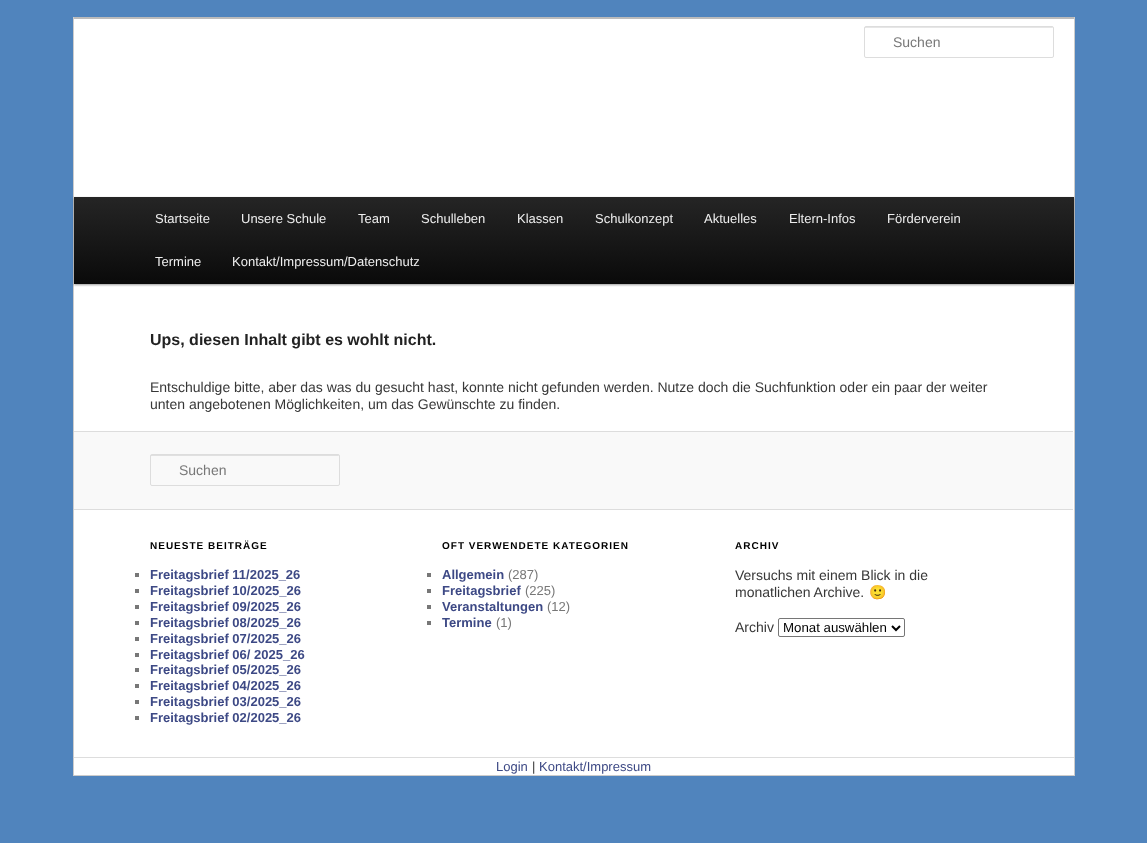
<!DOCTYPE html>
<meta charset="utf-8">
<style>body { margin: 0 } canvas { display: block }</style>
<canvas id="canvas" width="1147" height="843"></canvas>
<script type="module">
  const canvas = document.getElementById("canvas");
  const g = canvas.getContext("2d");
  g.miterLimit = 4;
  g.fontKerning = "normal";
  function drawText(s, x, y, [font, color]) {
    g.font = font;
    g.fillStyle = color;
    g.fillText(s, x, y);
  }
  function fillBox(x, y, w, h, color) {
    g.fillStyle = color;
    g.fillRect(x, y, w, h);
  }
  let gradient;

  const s1 = ["14px Liberation Sans", "#777777"];
  const s2 = ["13px Liberation Sans", "#EEEEEE"];
  const s3 = ["bold 16px Liberation Sans", "#222222"];
  const s4 = ["14px Liberation Sans", "#373737"];
  const s5 = ["bold 10px Liberation Sans", "#000000"];
  const s6 = ["bold 13px Liberation Sans", "#3D4985"];
  const s7 = ["13px Liberation Sans", "#777777"];
  const s8 = ["14px Noto Color Emoji", "#373737"];
  const s9 = ["13.25px Liberation Sans", "#000000"];
  const s10 = ["13px Liberation Sans", "#3D4985"];
  const s11 = ["13px Liberation Sans", "#373737"];

  fillBox(0, 0, 1147, 843, "#5084BD");
  fillBox(74, 19, 1000, 756, "#FFFFFF");
  fillBox(1074, 17, 1, 759, "#CCCCCC");
  fillBox(73, 775, 1002, 1, "#CCCCCC");
  fillBox(73, 17, 1, 759, "#CCCCCC");
  fillBox(74, 17, 1000, 2, "#BBBBBB");
  g.fillStyle = "#E6E6E6";
  g.beginPath();
  g.moveTo(866, 28);
  g.lineTo(1053, 28);
  g.lineTo(1053, 29);
  g.bezierCurveTo(1053, 28, 1053, 27, 1052, 27);
  g.lineTo(865, 27);
  g.lineTo(865, 29);
  g.bezierCurveTo(865, 28, 865, 28, 866, 28);
  g.closePath();
  g.fill();
  g.beginPath();
  g.roundRect(864.5, 26.5, 189, 31, 1.5);
  g.strokeStyle = "#DDDDDD";
  g.stroke();
  drawText("Suchen", 893, 47, s1);
  g.fillStyle = "rgba(0, 0, 0, 0.4)";
  g.filter = "blur(1px)";
  g.beginPath();
  g.rect(74, 198, 1000, 87);
  g.fill();
  g.filter = "none";
  gradient = g.createLinearGradient(574, 197, 574, 284);
  gradient.addColorStop(0, "#252525");
  gradient.addColorStop(1, "#0A0A0A");
  g.fillStyle = gradient;
  g.fillRect(74, 197, 1000, 87);
  drawText("Startseite", 155, 223, s2);
  drawText("Unsere Schule", 241, 223, s2);
  drawText("Team", 358, 223, s2);
  drawText("Schulleben", 421, 223, s2);
  drawText("Klassen", 517, 223, s2);
  drawText("Schulkonzept", 595, 223, s2);
  drawText("Aktuelles", 704, 223, s2);
  drawText("Eltern-Infos", 789, 223, s2);
  drawText("Förderverein", 887, 223, s2);
  drawText("Termine", 155, 266, s2);
  drawText("Kontakt/Impressum/Datenschutz", 232, 266, s2);
  drawText("Ups, diesen Inhalt gibt es wohlt nicht.", 150, 345, s3);
  drawText("Entschuldige bitte, aber das was du gesucht hast, konnte nicht gefunden werden. Nutze doch die Suchfunktion oder ein paar der weiter", 150, 392, s4);
  drawText("unten angebotenen Möglichkeiten, um das Gewünschte zu finden.", 150, 409, s4);
  fillBox(74, 432, 999, 77, "#F9F9F9");
  fillBox(74, 431, 999, 1, "#DDDDDD");
  fillBox(74, 509, 999, 1, "#DDDDDD");
  g.fillStyle = "#E0E0E0";
  g.beginPath();
  g.moveTo(152, 456);
  g.lineTo(339, 456);
  g.lineTo(339, 457);
  g.bezierCurveTo(339, 456, 339, 455, 338, 455);
  g.lineTo(151, 455);
  g.lineTo(151, 457);
  g.bezierCurveTo(151, 456, 151, 456, 152, 456);
  g.closePath();
  g.fill();
  g.beginPath();
  g.roundRect(150.5, 454.5, 189, 31, 1.5);
  g.stroke();
  drawText("Suchen", 179, 475, s1);
  g.letterSpacing = "1px";
  drawText("NEUESTE BEITRÄGE", 150, 549, s5);
  fillBox(135, 573, 4, 4, "#777777");
  g.letterSpacing = "0px";
  drawText("Freitagsbrief 11/2025_26", 150, 579, s6);
  fillBox(135, 589, 4, 4, "#777777");
  drawText("Freitagsbrief 10/2025_26", 150, 595, s6);
  fillBox(135, 605, 4, 4, "#777777");
  drawText("Freitagsbrief 09/2025_26", 150, 611, s6);
  fillBox(135, 621, 4, 4, "#777777");
  drawText("Freitagsbrief 08/2025_26", 150, 627, s6);
  fillBox(135, 637, 4, 4, "#777777");
  drawText("Freitagsbrief 07/2025_26", 150, 643, s6);
  fillBox(135, 653, 4, 4, "#777777");
  drawText("Freitagsbrief 06/ 2025_26", 150, 659, s6);
  fillBox(135, 668, 4, 4, "#777777");
  drawText("Freitagsbrief 05/2025_26", 150, 674, s6);
  fillBox(135, 684, 4, 4, "#777777");
  drawText("Freitagsbrief 04/2025_26", 150, 690, s6);
  fillBox(135, 700, 4, 4, "#777777");
  drawText("Freitagsbrief 03/2025_26", 150, 706, s6);
  fillBox(135, 716, 4, 4, "#777777");
  drawText("Freitagsbrief 02/2025_26", 150, 722, s6);
  g.letterSpacing = "1px";
  drawText("OFT VERWENDETE KATEGORIEN", 442, 549, s5);
  fillBox(427, 573, 4, 4, "#777777");
  g.letterSpacing = "0px";
  drawText("Allgemein", 442, 579, s6);
  drawText("(287)", 508, 579, s7);
  fillBox(427, 589, 4, 4, "#777777");
  drawText("Freitagsbrief", 442, 595, s6);
  drawText("(225)", 525, 595, s7);
  fillBox(427, 605, 4, 4, "#777777");
  drawText("Veranstaltungen", 442, 611, s6);
  drawText("(12)", 547, 611, s7);
  fillBox(427, 621, 4, 4, "#777777");
  drawText("Termine", 442, 627, s6);
  drawText("(1)", 496, 627, s7);
  g.letterSpacing = "1px";
  drawText("ARCHIV", 735, 549, s5);
  g.letterSpacing = "0px";
  drawText("Versuchs mit einem Blick in die", 735, 580, s4);
  drawText("monatlichen Archive.", 735, 597, s4);
  drawText("🙂", 869, 597, s8);
  drawText("Archiv", 735, 632, s4);
  g.beginPath();
  g.roundRect(778.5, 618.5, 126, 18, 1.5);
  g.strokeStyle = "#767676";
  g.stroke();
  g.beginPath();
  g.moveTo(892, 626);
  g.lineTo(896, 630);
  g.lineTo(900, 626);
  g.strokeStyle = "#000000";
  g.lineWidth = 2;
  g.stroke();
  drawText("Monat auswählen", 783, 632, s9);
  fillBox(74, 757, 1000, 1, "#DDDDDD");
  drawText("Login", 496, 771, s10);
  drawText("|", 532, 771, s11);
  drawText("Kontakt/Impressum", 539, 771, s10);
</script>
